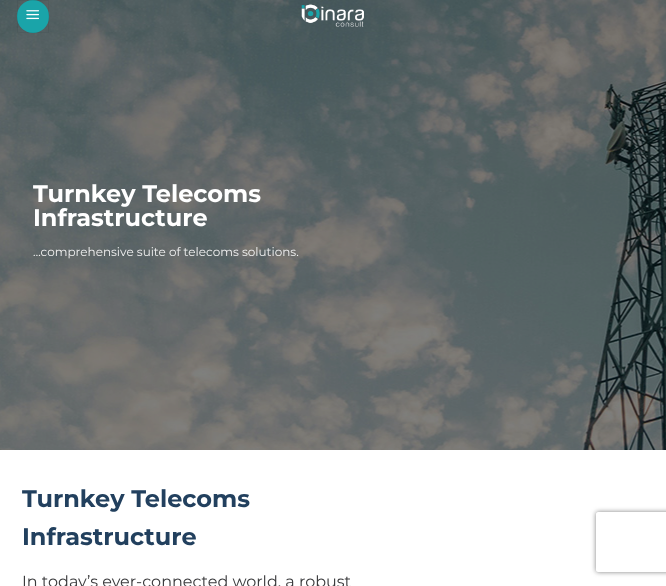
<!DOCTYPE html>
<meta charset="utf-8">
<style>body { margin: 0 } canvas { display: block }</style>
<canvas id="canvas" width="666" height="586"></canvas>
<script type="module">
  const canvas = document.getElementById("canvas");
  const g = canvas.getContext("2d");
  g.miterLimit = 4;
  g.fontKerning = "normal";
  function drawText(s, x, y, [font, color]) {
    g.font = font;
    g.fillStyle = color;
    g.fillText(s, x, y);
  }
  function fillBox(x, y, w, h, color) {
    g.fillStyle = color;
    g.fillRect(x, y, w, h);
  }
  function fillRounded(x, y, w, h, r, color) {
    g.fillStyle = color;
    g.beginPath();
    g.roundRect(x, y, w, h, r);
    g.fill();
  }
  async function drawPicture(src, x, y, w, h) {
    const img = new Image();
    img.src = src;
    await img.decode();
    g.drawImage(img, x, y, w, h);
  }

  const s1 = ["bold 24px Montserrat", "#FFFFFF"];
  const s2 = ["12px Montserrat", "#F1F1F1"];
  const s3 = ["bold 24px Montserrat", "#22405E"];
  const s4 = ["16px Montserrat", "#3A3A3C"];

  fillBox(0, 0, 666, 586, "#FFFFFF");
  await drawPicture("pic3.png", 0, 0, 666, 450);
  fillRounded(17, 0, 32, 33, 16, "#1AA4A9");
  g.strokeStyle = "rgba(0, 0, 0, 0.05)";
  g.strokeRect(17.5, 0.5, 31, 32);
  await drawPicture("pic1.png", 26, 10, 13, 10);
  await drawPicture("pic2.png", 301, 4, 63, 23);
  drawText("Turnkey Telecoms", 33, 202, s1);
  drawText("Infrastructure", 33, 226, s1);
  drawText("…comprehensive suite of telecoms solutions.", 33, 256, s2);
  drawText("Turnkey Telecoms", 22, 507, s3);
  drawText("Infrastructure", 22, 545, s3);
  drawText("In today’s ever-connected world, a robust", 22, 587, s4);
  g.save();
  g.beginPath();
  g.moveTo(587, 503);
  g.lineTo(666, 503);
  g.lineTo(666, 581);
  g.lineTo(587, 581);
  g.closePath();
  g.moveTo(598, 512);
  g.lineTo(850, 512);
  g.bezierCurveTo(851, 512, 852, 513, 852, 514);
  g.lineTo(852, 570);
  g.bezierCurveTo(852, 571, 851, 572, 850, 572);
  g.lineTo(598, 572);
  g.bezierCurveTo(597, 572, 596, 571, 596, 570);
  g.lineTo(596, 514);
  g.bezierCurveTo(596, 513, 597, 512, 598, 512);
  g.closePath();
  g.clip("evenodd");
  g.fillStyle = "#808080";
  g.filter = "blur(2.5px)";
  g.beginPath();
  g.roundRect(596, 512, 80, 60, 2);
  g.fill();
  g.filter = "none";
  g.restore();
</script>
